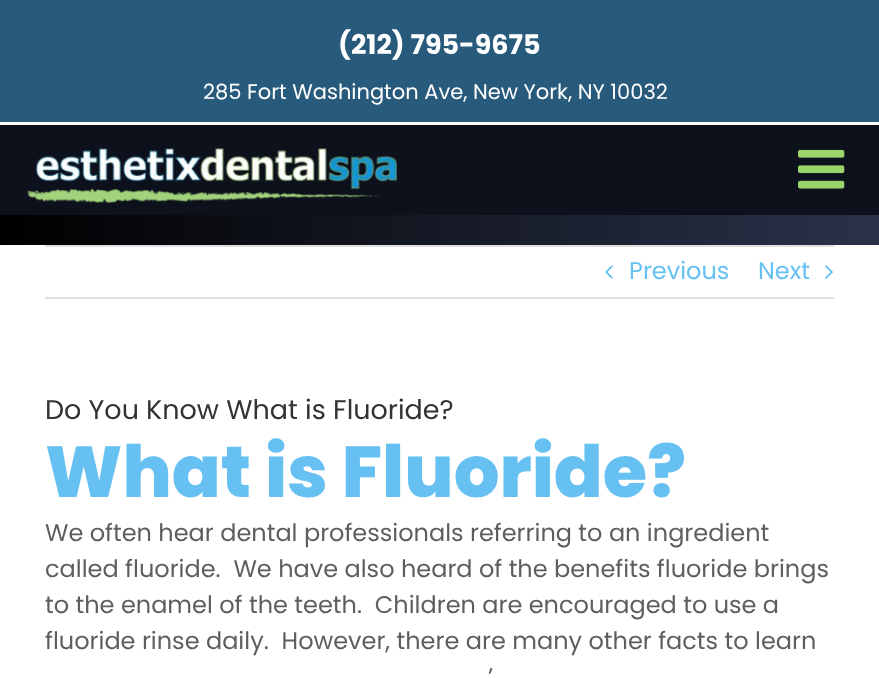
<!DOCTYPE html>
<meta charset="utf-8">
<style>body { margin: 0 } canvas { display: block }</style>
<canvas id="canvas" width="879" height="678"></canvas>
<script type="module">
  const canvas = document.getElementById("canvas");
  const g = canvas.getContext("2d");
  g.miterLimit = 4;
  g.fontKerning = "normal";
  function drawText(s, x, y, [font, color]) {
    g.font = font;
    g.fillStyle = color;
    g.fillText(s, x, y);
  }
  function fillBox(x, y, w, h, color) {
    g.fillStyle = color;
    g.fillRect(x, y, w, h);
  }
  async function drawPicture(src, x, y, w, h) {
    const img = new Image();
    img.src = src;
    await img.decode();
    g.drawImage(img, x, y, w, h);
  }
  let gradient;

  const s1 = ["bold 27px Poppins", "#FFFFFF"];
  const s2 = ["21px Poppins", "#FFFFFF"];
  const s3 = ["24px Poppins", "#66C0F2"];
  const s4 = ["27px Poppins", "#333333"];
  const s5 = ["800 72px Poppins", "#66C0F2"];
  const s6 = ["24px Poppins", "#5E5E5E"];

  fillBox(0, 0, 879, 678, "#FFFFFF");
  gradient = g.createLinearGradient(0, 122, 879, 122);
  gradient.addColorStop(0, "#000000");
  gradient.addColorStop(1, "#2A324A");
  g.fillStyle = gradient;
  g.fillRect(0, 215, 879, 30);
  fillBox(0, 0, 879, 122, "#285A7B");
  drawText("(212) 795-9675", 338, 54, s1);
  drawText("285 Fort Washington Ave, New York, NY 10032", 203, 99, s2);
  fillBox(0, 125, 879, 90, "#0D111C");
  await drawPicture("pic1.png", 27, 148, 370, 55);
  await drawPicture("pic2.png", 798, 149, 47, 40);
  fillBox(45, 245, 789, 2, "#E0DEDE");
  fillBox(45, 297, 789, 2, "#E0DEDE");
  await drawPicture("pic3.png", 605, 265, 8, 14);
  drawText("Previous", 629, 279, s3);
  drawText("Next", 758, 279, s3);
  await drawPicture("pic4.png", 825, 265, 8, 14);
  drawText("Do You Know What is Fluoride?", 45, 419, s4);
  drawText("What is Fluoride?", 45, 497, s5);
  drawText("We often hear dental professionals referring to an ingredient", 45, 541, s6);
  drawText("called fluoride.  We have also heard of the benefits fluoride brings", 45, 577, s6);
  drawText("to the enamel of the teeth.  Children are encouraged to use a", 45, 613, s6);
  drawText("fluoride rinse daily.  However, there are many other facts to learn", 45, 649, s6);
  drawText("’", 488, 685, s6);
</script>
